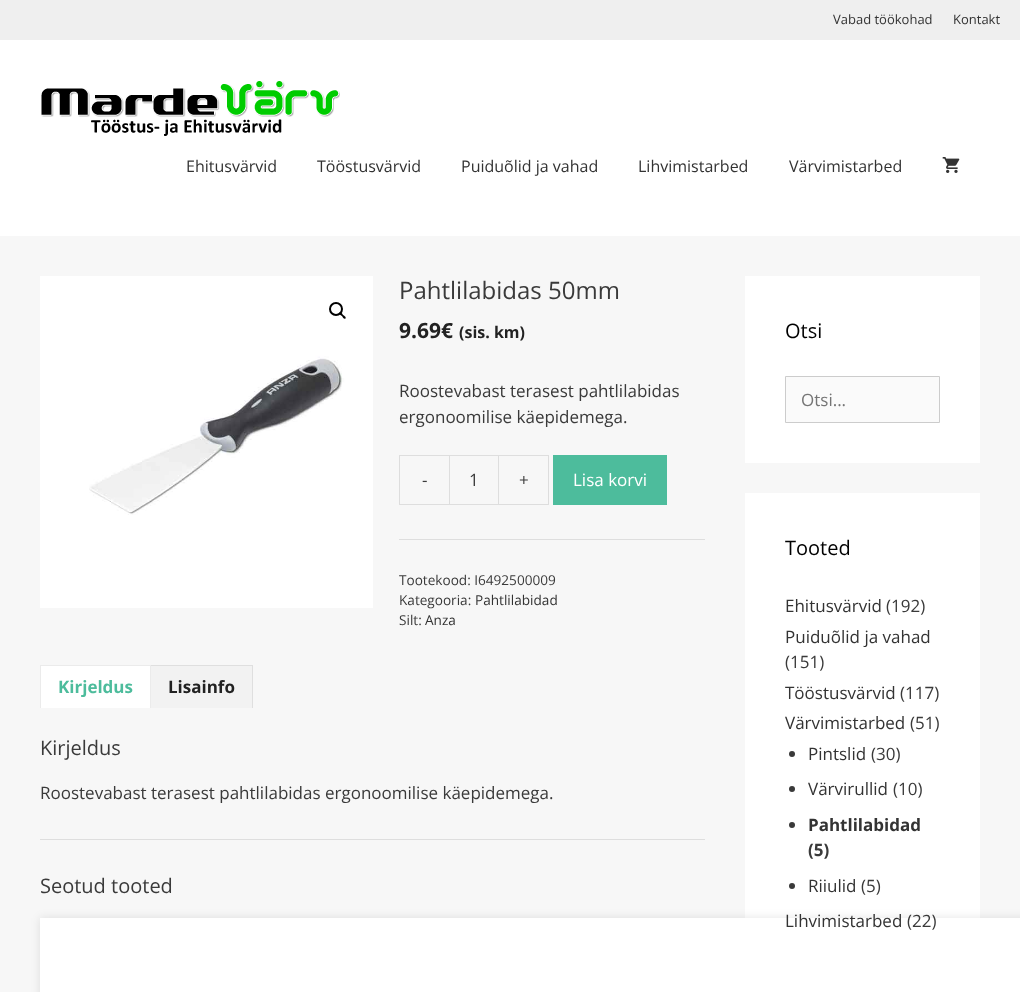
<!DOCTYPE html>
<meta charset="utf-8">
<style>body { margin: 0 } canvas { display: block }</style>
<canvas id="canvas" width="1020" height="992"></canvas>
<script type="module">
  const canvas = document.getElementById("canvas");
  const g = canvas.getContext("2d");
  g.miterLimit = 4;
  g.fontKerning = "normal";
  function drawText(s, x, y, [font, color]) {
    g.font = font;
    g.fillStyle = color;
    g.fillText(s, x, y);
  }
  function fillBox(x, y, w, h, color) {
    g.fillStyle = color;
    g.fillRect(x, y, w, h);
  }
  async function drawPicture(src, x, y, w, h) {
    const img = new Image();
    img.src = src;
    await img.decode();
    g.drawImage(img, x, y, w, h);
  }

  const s1 = ["13px Open Sans", "#333333"];
  const s2 = ["16px Open Sans", "#333333"];
  const s3 = ["24px Open Sans", "#3A3A3A"];
  const s4 = ["bold 21px Open Sans", "#222222"];
  const s5 = ["bold 16px Open Sans", "#222222"];
  const s6 = ["17px Open Sans", "#3A3A3A"];
  const s7 = ["17px Open Sans", "#FFFFFF"];
  const s8 = ["13.6px Open Sans", "#3A3A3A"];
  const s9 = ["13.6px Open Sans", "#333333"];
  const s10 = ["bold 17px Open Sans", "#4DBC9C"];
  const s11 = ["bold 17px Open Sans", "#222222"];
  const s12 = ["20px Open Sans", "#3A3A3A"];
  const s13 = ["20px Open Sans", "#000000"];
  const s14 = ["17px Open Sans", "#757575"];
  const s15 = ["17px Open Sans", "#333333"];
  const s16 = ["bold 17px Open Sans", "#333333"];
  const s17 = ["bold 17px Open Sans", "#3A3A3A"];

  fillBox(0, 0, 1020, 992, "#EFEFEF");
  drawText("Vabad töökohad", 833, 24, s1);
  drawText("Kontakt", 953, 24, s1);
  fillBox(0, 40, 1020, 196, "#FFFFFF");
  await drawPicture("pic1.png", 41, 81, 299, 55);
  drawText("Ehitusvärvid", 186, 172, s2);
  drawText("Tööstusvärvid", 317, 172, s2);
  drawText("Puiduõlid ja vahad", 461, 172, s2);
  drawText("Lihvimistarbed", 638, 172, s2);
  drawText("Värvimistarbed", 789, 172, s2);
  await drawPicture("pic2.png", 942, 157, 18, 16);
  fillBox(0, 236, 1020, 756, "#F7F7F7");
  await drawPicture("pic3.png", 40, 276, 333, 332);
  g.beginPath();
  g.arc(336, 309, 6, 0, Math.PI * 2);
  g.strokeStyle = "#000000";
  g.lineWidth = 2;
  g.stroke();
  g.fillStyle = "#000000";
  g.beginPath();
  g.moveTo(339.5, 312.5);
  g.bezierCurveTo(341, 311.5, 342.5, 314, 343, 315);
  g.bezierCurveTo(344, 315.5, 346.5, 317, 345.5, 318.5);
  g.bezierCurveTo(344, 319.5, 342.5, 317, 342, 316);
  g.bezierCurveTo(341, 315.5, 338.5, 314, 339.5, 312.5);
  g.closePath();
  g.fill();
  drawText("Pahtlilabidas 50mm", 399, 299, s3);
  drawText("9.69€", 399, 338, s4);
  drawText("(sis. km)", 459, 338, s5);
  drawText("Roostevabast terasest pahtlilabidas", 399, 397, s6);
  drawText("ergonoomilise käepidemega.", 399, 423, s6);
  g.fillStyle = "#DEDEDE";
  g.beginPath();
  g.moveTo(399, 455);
  g.lineTo(449, 455);
  g.lineTo(449, 456);
  g.lineTo(400, 456);
  g.closePath();
  g.moveTo(449, 505);
  g.lineTo(399, 505);
  g.lineTo(400, 504);
  g.lineTo(449, 504);
  g.closePath();
  g.fill();
  g.fillStyle = "rgba(0, 0, 0, 0.1)";
  g.beginPath();
  g.moveTo(399, 505);
  g.lineTo(399, 455);
  g.lineTo(400, 456);
  g.lineTo(400, 504);
  g.closePath();
  g.fill();
  drawText("-", 422, 486, s6);
  g.strokeStyle = "#DEDEDE";
  g.lineWidth = 1;
  g.strokeRect(449.5, 455.5, 49, 49);
  drawText("1", 469, 486, s6);
  g.fillStyle = "#DEDEDE";
  g.beginPath();
  g.moveTo(499, 455);
  g.lineTo(549, 455);
  g.lineTo(548, 456);
  g.lineTo(499, 456);
  g.closePath();
  g.fill();
  g.fillStyle = "rgba(0, 0, 0, 0.1)";
  g.beginPath();
  g.moveTo(549, 455);
  g.lineTo(549, 505);
  g.lineTo(548, 504);
  g.lineTo(548, 456);
  g.closePath();
  g.fill();
  g.beginPath();
  g.moveTo(549, 505);
  g.lineTo(499, 505);
  g.lineTo(499, 504);
  g.lineTo(548, 504);
  g.closePath();
  g.fill();
  drawText("+", 519, 486, s6);
  fillBox(553, 455, 114, 50, "#4DBC9C");
  drawText("Lisa korvi", 573, 486, s7);
  fillBox(399, 539, 306, 1, "#DEDEDE");
  drawText("Tootekood: I6492500009", 399, 585, s8);
  drawText("Kategooria:", 399, 605, s8);
  drawText("Pahtlilabidad", 475, 605, s9);
  drawText("Silt:", 399, 625, s8);
  drawText("Anza", 425, 625, s9);
  fillBox(40, 665, 111, 43, "#FFFFFF");
  g.fillStyle = "#EBEBEB";
  g.beginPath();
  g.moveTo(40, 665);
  g.lineTo(151, 665);
  g.lineTo(150, 666);
  g.lineTo(41, 666);
  g.closePath();
  g.fill();
  g.fillStyle = "rgba(0, 0, 0, 0.08)";
  g.beginPath();
  g.moveTo(151, 665);
  g.lineTo(151, 708);
  g.lineTo(150, 708);
  g.lineTo(150, 666);
  g.closePath();
  g.fill();
  g.beginPath();
  g.moveTo(40, 708);
  g.lineTo(40, 665);
  g.lineTo(41, 666);
  g.lineTo(41, 708);
  g.closePath();
  g.fill();
  drawText("Kirjeldus", 58, 693, s10);
  fillBox(151, 665, 102, 43, "#F2F2F2");
  g.fillStyle = "#DFDFDF";
  g.beginPath();
  g.moveTo(151, 665);
  g.lineTo(253, 665);
  g.lineTo(252, 666);
  g.lineTo(151, 666);
  g.closePath();
  g.fill();
  g.fillStyle = "rgba(0, 0, 0, 0.08)";
  g.beginPath();
  g.moveTo(253, 665);
  g.lineTo(253, 708);
  g.lineTo(252, 708);
  g.lineTo(252, 666);
  g.closePath();
  g.fill();
  drawText("Lisainfo", 168, 693, s11);
  fillBox(40, 839, 665, 1, "#DEDEDE");
  drawText("Kirjeldus", 40, 755, s12);
  drawText("Roostevabast terasest pahtlilabidas ergonoomilise käepidemega.", 40, 799, s6);
  drawText("Seotud tooted", 40, 893, s12);
  fillBox(745, 493, 235, 425, "#FFFFFF");
  g.fillStyle = "rgba(0, 0, 0, 0.1)";
  g.filter = "blur(5px)";
  g.beginPath();
  g.rect(40, 918, 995, 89);
  g.fill();
  g.filter = "none";
  fillBox(40, 918, 980, 74, "#FFFFFF");
  fillBox(745, 276, 235, 187, "#FFFFFF");
  drawText("Otsi", 785, 338, s13);
  g.fillStyle = "#FAFAFA";
  g.beginPath();
  g.rect(785.5, 376.5, 154, 46);
  g.fill();
  g.strokeStyle = "#CCCCCC";
  g.stroke();
  drawText("Otsi...", 801, 406, s14);
  drawText("Tooted", 785, 555, s13);
  drawText("Ehitusvärvid", 785, 612, s15);
  drawText("(192)", 886, 612, s6);
  drawText("Puiduõlid ja vahad", 785, 643, s15);
  drawText("(151)", 785, 668, s6);
  drawText("Tööstusvärvid", 785, 699, s15);
  drawText("(117)", 900, 699, s6);
  drawText("Värvimistarbed", 785, 729, s15);
  drawText("(51)", 910, 729, s6);
  g.beginPath();
  g.arc(792, 754, 3, 0, Math.PI * 2);
  g.fill();
  drawText("Pintslid", 808, 760, s15);
  drawText("(30)", 871, 760, s6);
  g.beginPath();
  g.arc(792, 789, 3, 0, Math.PI * 2);
  g.fill();
  drawText("Värvirullid", 808, 795, s15);
  drawText("(10)", 893, 795, s6);
  g.beginPath();
  g.arc(792, 825, 3, 0, Math.PI * 2);
  g.fill();
  drawText("Pahtlilabidad", 808, 831, s16);
  drawText("(5)", 808, 856, s17);
  g.beginPath();
  g.arc(792, 886, 3, 0, Math.PI * 2);
  g.fill();
  drawText("Riiulid", 808, 892, s15);
  drawText("(5)", 861, 892, s6);
  drawText("Lihvimistarbed", 785, 927, s15);
  drawText("(22)", 907, 927, s6);
</script>
